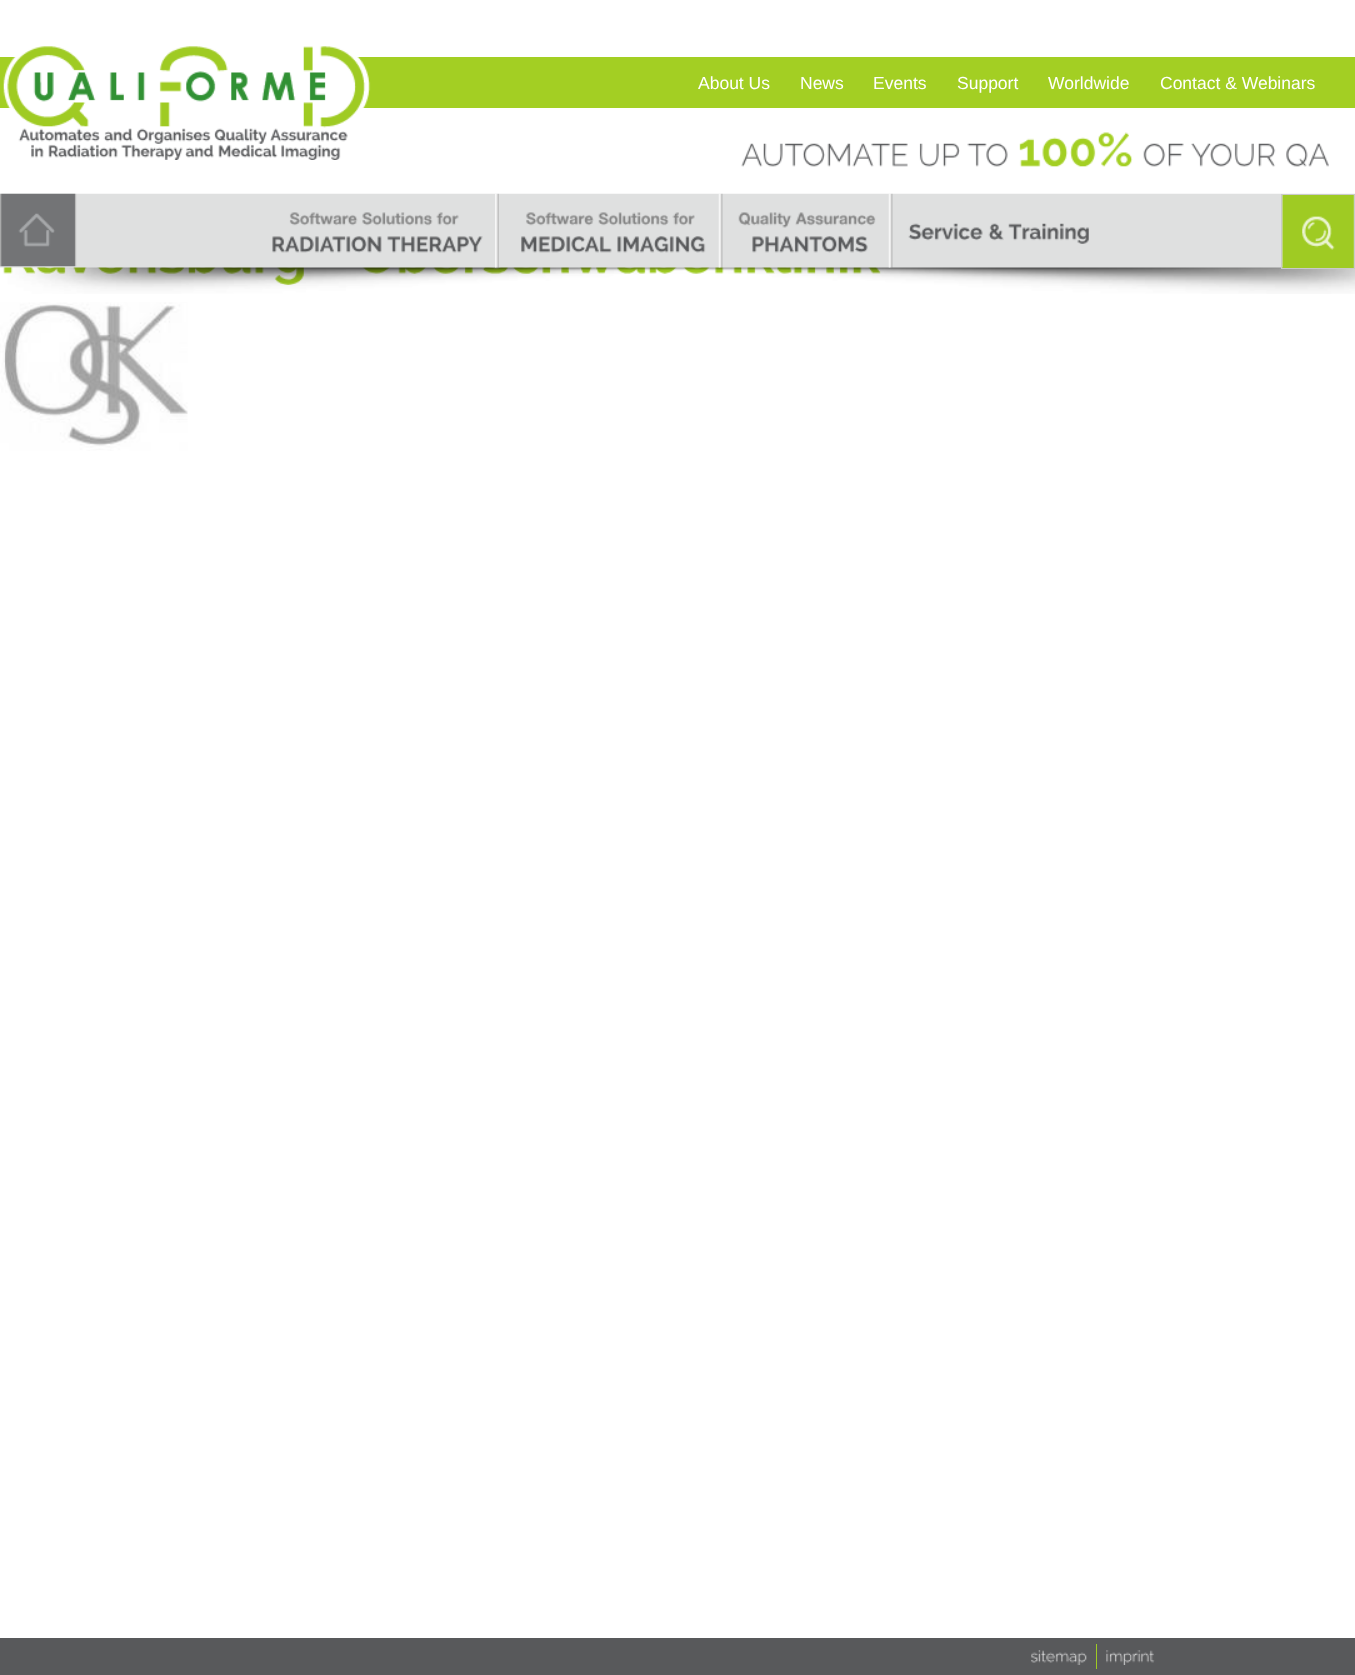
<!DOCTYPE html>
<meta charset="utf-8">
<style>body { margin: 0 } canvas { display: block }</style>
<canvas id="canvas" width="1355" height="1675"></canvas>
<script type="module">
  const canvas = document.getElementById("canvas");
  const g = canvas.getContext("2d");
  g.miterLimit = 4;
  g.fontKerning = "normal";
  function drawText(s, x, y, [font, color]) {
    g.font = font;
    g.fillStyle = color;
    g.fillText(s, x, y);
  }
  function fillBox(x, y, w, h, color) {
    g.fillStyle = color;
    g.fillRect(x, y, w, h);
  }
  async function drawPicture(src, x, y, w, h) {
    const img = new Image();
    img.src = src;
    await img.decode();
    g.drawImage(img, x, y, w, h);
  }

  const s1 = ["17.5px Liberation Sans", "#FFFFFF"];

  fillBox(0, 0, 1355, 1675, "#FFFFFF");
  fillBox(0, 57, 1355, 51, "#A3CF23");
  await drawPicture("pic1.png", 3, 46, 368, 82);
  drawText("About Us", 698, 89, s1);
  drawText("News", 800, 89, s1);
  drawText("Events", 873, 89, s1);
  drawText("Support", 957, 89, s1);
  drawText("Worldwide", 1048, 89, s1);
  drawText("Contact & Webinars", 1160, 89, s1);
  await drawPicture("pic2.png", 18, 128, 82, 14);
  await drawPicture("pic3.png", 103, 128, 30, 14);
  await drawPicture("pic4.png", 136, 128, 75, 16);
  await drawPicture("pic5.png", 214, 128, 53, 16);
  await drawPicture("pic6.png", 270, 128, 78, 14);
  await drawPicture("pic7.png", 31, 144, 13, 14);
  await drawPicture("pic8.png", 48, 144, 70, 14);
  await drawPicture("pic9.png", 121, 144, 62, 16);
  await drawPicture("pic10.png", 185, 144, 29, 14);
  await drawPicture("pic11.png", 218, 144, 60, 14);
  await drawPicture("pic12.png", 281, 144, 60, 16);
  await drawPicture("pic13.png", 741, 143, 167, 24);
  await drawPicture("pic14.png", 919, 143, 41, 24);
  await drawPicture("pic15.png", 967, 143, 41, 24);
  await drawPicture("pic16.png", 1019, 132, 114, 35);
  await drawPicture("pic17.png", 1143, 143, 41, 24);
  await drawPicture("pic18.png", 1191, 143, 85, 24);
  await drawPicture("pic19.png", 1286, 143, 43, 24);
  await drawPicture("pic42.png", 3, 267, 301, 18);
  await drawPicture("pic43.png", 362, 267, 519, 7);
  await drawPicture("pic20.png", 0, 193, 1355, 101);
  await drawPicture("pic21.png", 495, 193, 4, 75);
  await drawPicture("pic22.png", 289, 212, 69, 14);
  await drawPicture("pic23.png", 362, 212, 71, 14);
  await drawPicture("pic24.png", 436, 212, 23, 14);
  await drawPicture("pic25.png", 272, 236, 110, 17);
  await drawPicture("pic26.png", 387, 236, 96, 17);
  await drawPicture("pic27.png", 718, 193, 5, 75);
  await drawPicture("pic28.png", 526, 212, 68, 14);
  await drawPicture("pic29.png", 598, 212, 71, 14);
  await drawPicture("pic30.png", 672, 212, 23, 14);
  await drawPicture("pic31.png", 521, 236, 91, 17);
  await drawPicture("pic32.png", 617, 236, 89, 17);
  await drawPicture("pic33.png", 888, 193, 5, 75);
  await drawPicture("pic34.png", 738, 212, 54, 16);
  await drawPicture("pic35.png", 795, 212, 81, 14);
  await drawPicture("pic36.png", 752, 236, 116, 17);
  await drawPicture("pic37.png", 908, 223, 75, 18);
  await drawPicture("pic38.png", 988, 223, 16, 18);
  await drawPicture("pic39.png", 1008, 223, 81, 21);
  await drawPicture("pic40.png", 1282, 195, 72, 73);
  g.strokeStyle = "#CACACA";
  g.strokeRect(1281.5, 194.5, 73, 74);
  await drawPicture("pic41.png", 0, 193, 77, 74);
  await drawPicture("pic44.png", 0, 302, 188, 149);
  fillBox(0, 1638, 1355, 37, "#58595B");
  fillBox(1096, 1644, 1, 25, "#9FCB23");
  await drawPicture("pic45.png", 1031, 1650, 56, 15);
  await drawPicture("pic46.png", 1106, 1650, 49, 15);
</script>
